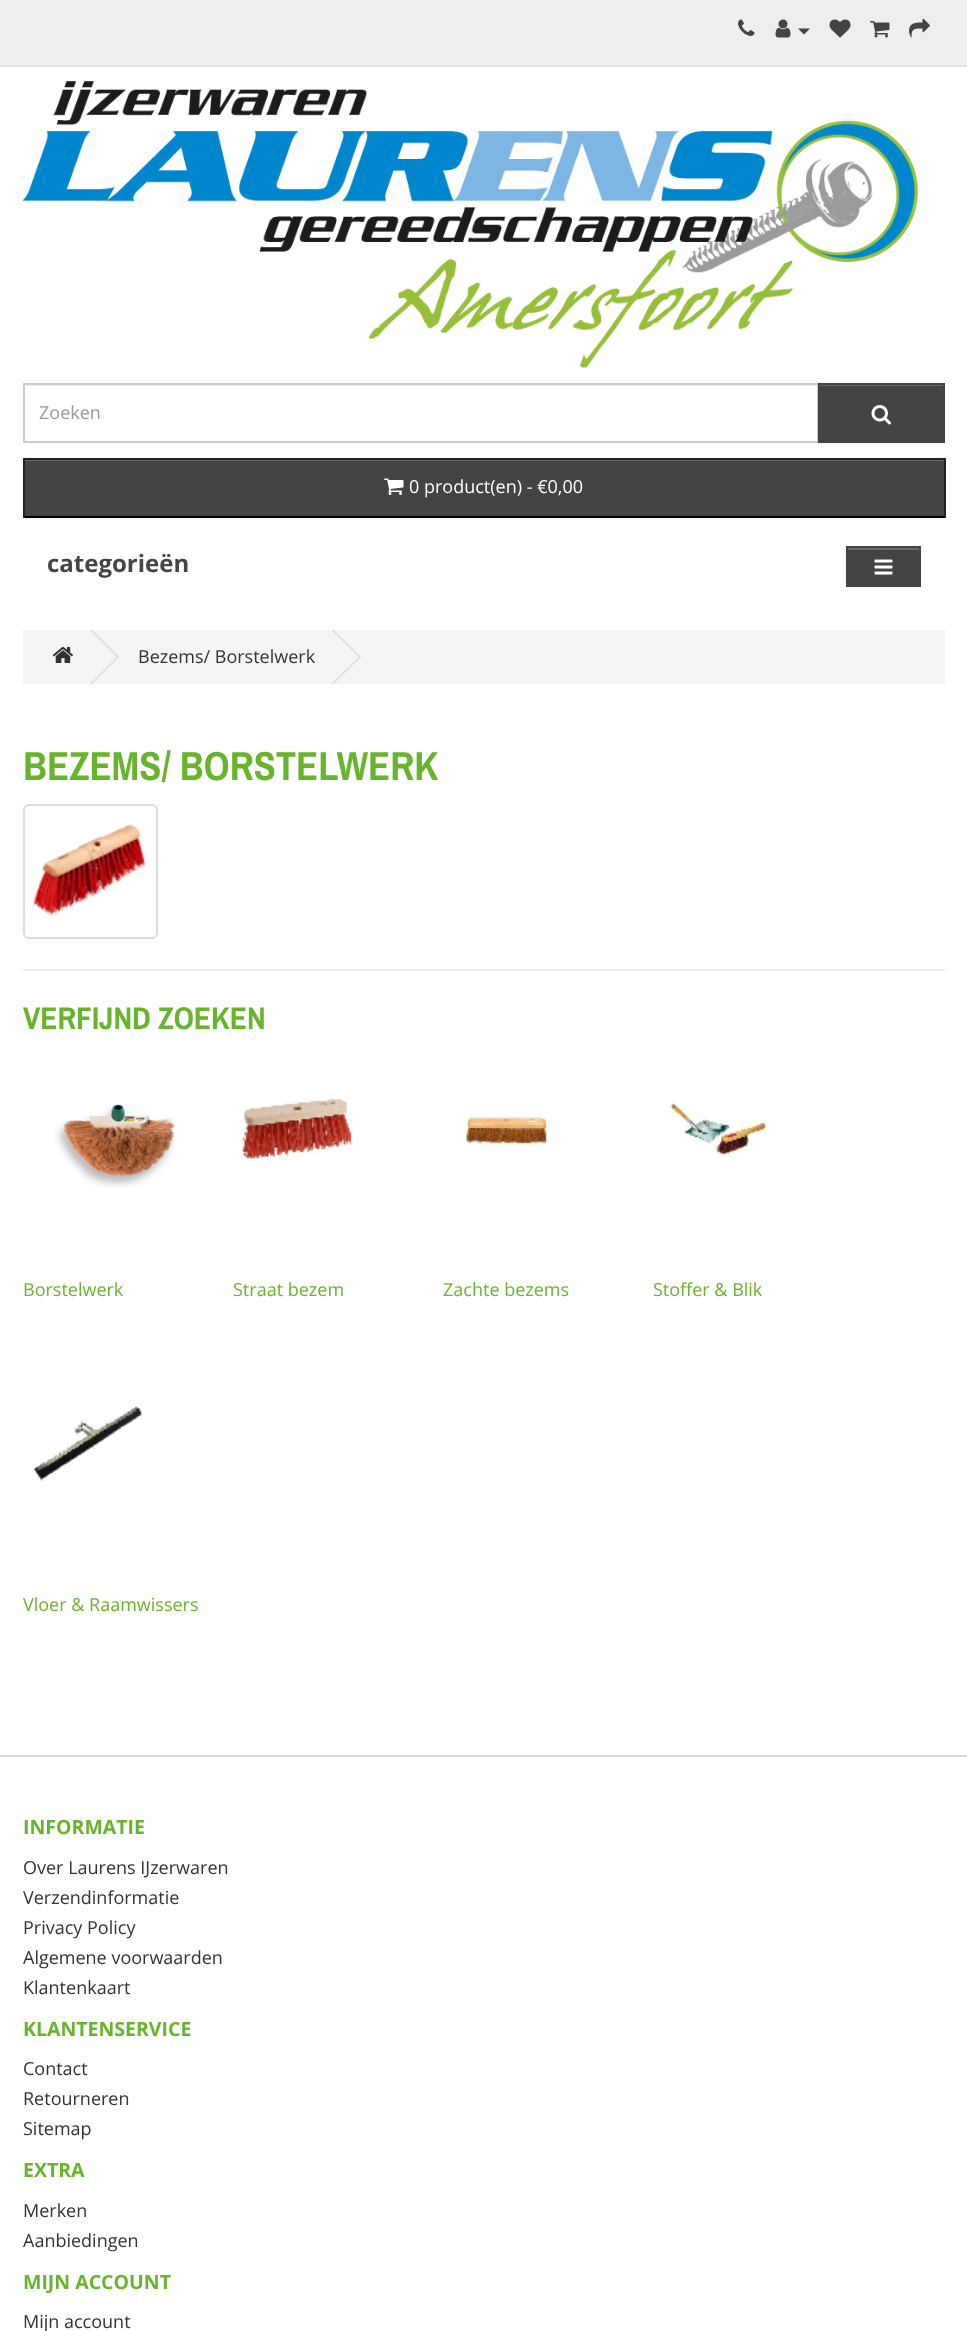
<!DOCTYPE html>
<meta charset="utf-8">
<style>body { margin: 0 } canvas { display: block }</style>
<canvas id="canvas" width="967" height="2331"></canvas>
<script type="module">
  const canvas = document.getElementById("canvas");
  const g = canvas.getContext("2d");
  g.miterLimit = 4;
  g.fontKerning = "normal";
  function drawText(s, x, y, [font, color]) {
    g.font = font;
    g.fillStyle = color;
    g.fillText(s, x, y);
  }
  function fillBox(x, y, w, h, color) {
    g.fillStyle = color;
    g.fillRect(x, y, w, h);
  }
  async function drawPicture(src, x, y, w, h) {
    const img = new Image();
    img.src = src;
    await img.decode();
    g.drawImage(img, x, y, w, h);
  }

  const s1 = ["18px Open Sans", "#999999"];
  const s2 = ["18px Open Sans", "#FFFFFF"];
  const s3 = ["bold 24px Open Sans", "#444444"];
  const s4 = ["18px Open Sans", "#333333"];
  const s5 = ["bold 40.5px Archivo Narrow", "#69B42D"];
  const s6 = ["bold 31.5px Archivo Narrow", "#69B42D"];
  const s7 = ["18px Open Sans", "#69B42D"];
  const s8 = ["bold 19.5px Open Sans", "#69B42D"];

  fillBox(0, 0, 967, 2331, "#FFFFFF");
  fillBox(0, 0, 967, 65, "#EEEEEE");
  fillBox(0, 65, 967, 2, "#E2E2E2");
  await drawPicture("pic1.png", 738, 19, 17, 17);
  await drawPicture("pic2.png", 775, 19, 16, 19);
  g.fillStyle = "#444444";
  g.beginPath();
  g.moveTo(798, 28.5);
  g.lineTo(810, 28.5);
  g.lineTo(804, 34.5);
  g.closePath();
  g.fill();
  await drawPicture("pic3.png", 829, 19, 22, 19);
  await drawPicture("pic4.png", 870, 21, 20, 17);
  await drawPicture("pic5.png", 909, 18, 21, 20);
  await drawPicture("pic6.png", 22, 81, 897, 287);
  fillBox(24, 385, 794, 1, "#ECECEC");
  g.strokeStyle = "#CCCCCC";
  g.lineWidth = 2;
  g.strokeRect(24, 384, 794, 58);
  drawText("Zoeken", 39, 419, s1);
  g.fillStyle = "rgba(0, 0, 0, 0.05)";
  g.filter = "blur(1.5px)";
  g.beginPath();
  g.rect(818, 384, 127, 60);
  g.fill();
  g.filter = "none";
  fillBox(820, 386, 123, 55, "#444444");
  fillBox(819, 385, 125, 1, "#696969");
  g.strokeStyle = "#444444";
  g.strokeRect(819, 384, 125, 58);
  await drawPicture("pic7.png", 871, 405, 20, 20);
  g.fillStyle = "rgba(0, 0, 0, 0.05)";
  g.filter = "blur(1.5px)";
  g.beginPath();
  g.rect(23, 459, 922, 60);
  g.fill();
  g.filter = "none";
  fillBox(25, 461, 919, 55, "#444444");
  fillBox(24, 460, 920, 1, "#696969");
  fillBox(23, 458, 922, 2, "#222222");
  fillBox(944, 458, 2, 60, "#222222");
  fillBox(23, 516, 922, 2, "#000000");
  fillBox(23, 458, 2, 60, "#222222");
  await drawPicture("pic8.png", 384, 478, 20, 17);
  drawText("0 product(en) - €0,00", 409, 493, s2);
  drawText("categorieën", 47, 572, s3);
  g.fillStyle = "rgba(0, 0, 0, 0.05)";
  g.filter = "blur(1.5px)";
  g.beginPath();
  g.rect(846, 548, 75, 40);
  g.fill();
  g.filter = "none";
  fillBox(848, 550, 71, 35, "#444444");
  fillBox(848, 548, 72, 2, "#696969");
  g.strokeRect(847, 547, 73, 39);
  await drawPicture("pic9.png", 874, 559, 19, 16);
  fillBox(23, 630, 922, 54, "#F5F5F5");
  await drawPicture("pic10.png", 52, 646, 21, 17);
  g.fillStyle = "#DDDDDD";
  g.beginPath();
  g.moveTo(90.5, 630.5);
  g.lineTo(91.5, 629.5);
  g.lineTo(119, 657);
  g.lineTo(118, 658);
  g.closePath();
  g.fill();
  g.beginPath();
  g.moveTo(90.5, 683.5);
  g.lineTo(118, 656);
  g.lineTo(119, 657);
  g.lineTo(91.5, 684.5);
  g.closePath();
  g.fill();
  drawText("Bezems/ Borstelwerk", 138, 663, s4);
  g.fillStyle = "#DDDDDD";
  g.beginPath();
  g.moveTo(332, 630.5);
  g.lineTo(333, 629.5);
  g.lineTo(361, 657);
  g.lineTo(360, 658);
  g.closePath();
  g.fill();
  g.beginPath();
  g.moveTo(332, 683.5);
  g.lineTo(360, 656);
  g.lineTo(361, 657);
  g.lineTo(333, 684.5);
  g.closePath();
  g.fill();
  drawText("BEZEMS/ BORSTELWERK", 23, 780, s5);
  g.beginPath();
  g.roundRect(24, 805, 133, 133, 5);
  g.strokeStyle = "#DDDDDD";
  g.stroke();
  await drawPicture("pic11.png", 30, 824, 116, 92);
  fillBox(23, 969, 922, 2, "#EEEEEE");
  drawText("VERFIJND ZOEKEN", 23, 1029, s6);
  await drawPicture("pic12.png", 55, 1104, 121, 84);
  drawText("Borstelwerk", 23, 1296, s7);
  await drawPicture("pic13.png", 241, 1098, 111, 63);
  drawText("Straat bezem", 233, 1296, s7);
  await drawPicture("pic14.png", 463, 1117, 86, 30);
  drawText("Zachte bezems", 443, 1296, s7);
  await drawPicture("pic15.png", 670, 1101, 97, 60);
  drawText("Stoffer & Blik", 653, 1296, s7);
  await drawPicture("pic16.png", 32, 1406, 110, 76);
  drawText("Vloer & Raamwissers", 23, 1611, s7);
  fillBox(0, 1755, 967, 2, "#DDDDDD");
  drawText("INFORMATIE", 23, 1834, s8);
  drawText("Over Laurens IJzerwaren", 23, 1874, s4);
  drawText("Verzendinformatie", 23, 1904, s4);
  drawText("Privacy Policy", 23, 1934, s4);
  drawText("Algemene voorwaarden", 23, 1964, s4);
  drawText("Klantenkaart", 23, 1994, s4);
  drawText("KLANTENSERVICE", 23, 2036, s8);
  drawText("Contact", 23, 2075, s4);
  drawText("Retourneren", 23, 2105, s4);
  drawText("Sitemap", 23, 2135, s4);
  drawText("EXTRA", 23, 2177, s8);
  drawText("Merken", 23, 2217, s4);
  drawText("Aanbiedingen", 23, 2247, s4);
  drawText("MIJN ACCOUNT", 23, 2289, s8);
  drawText("Mijn account", 23, 2328, s4);
</script>
